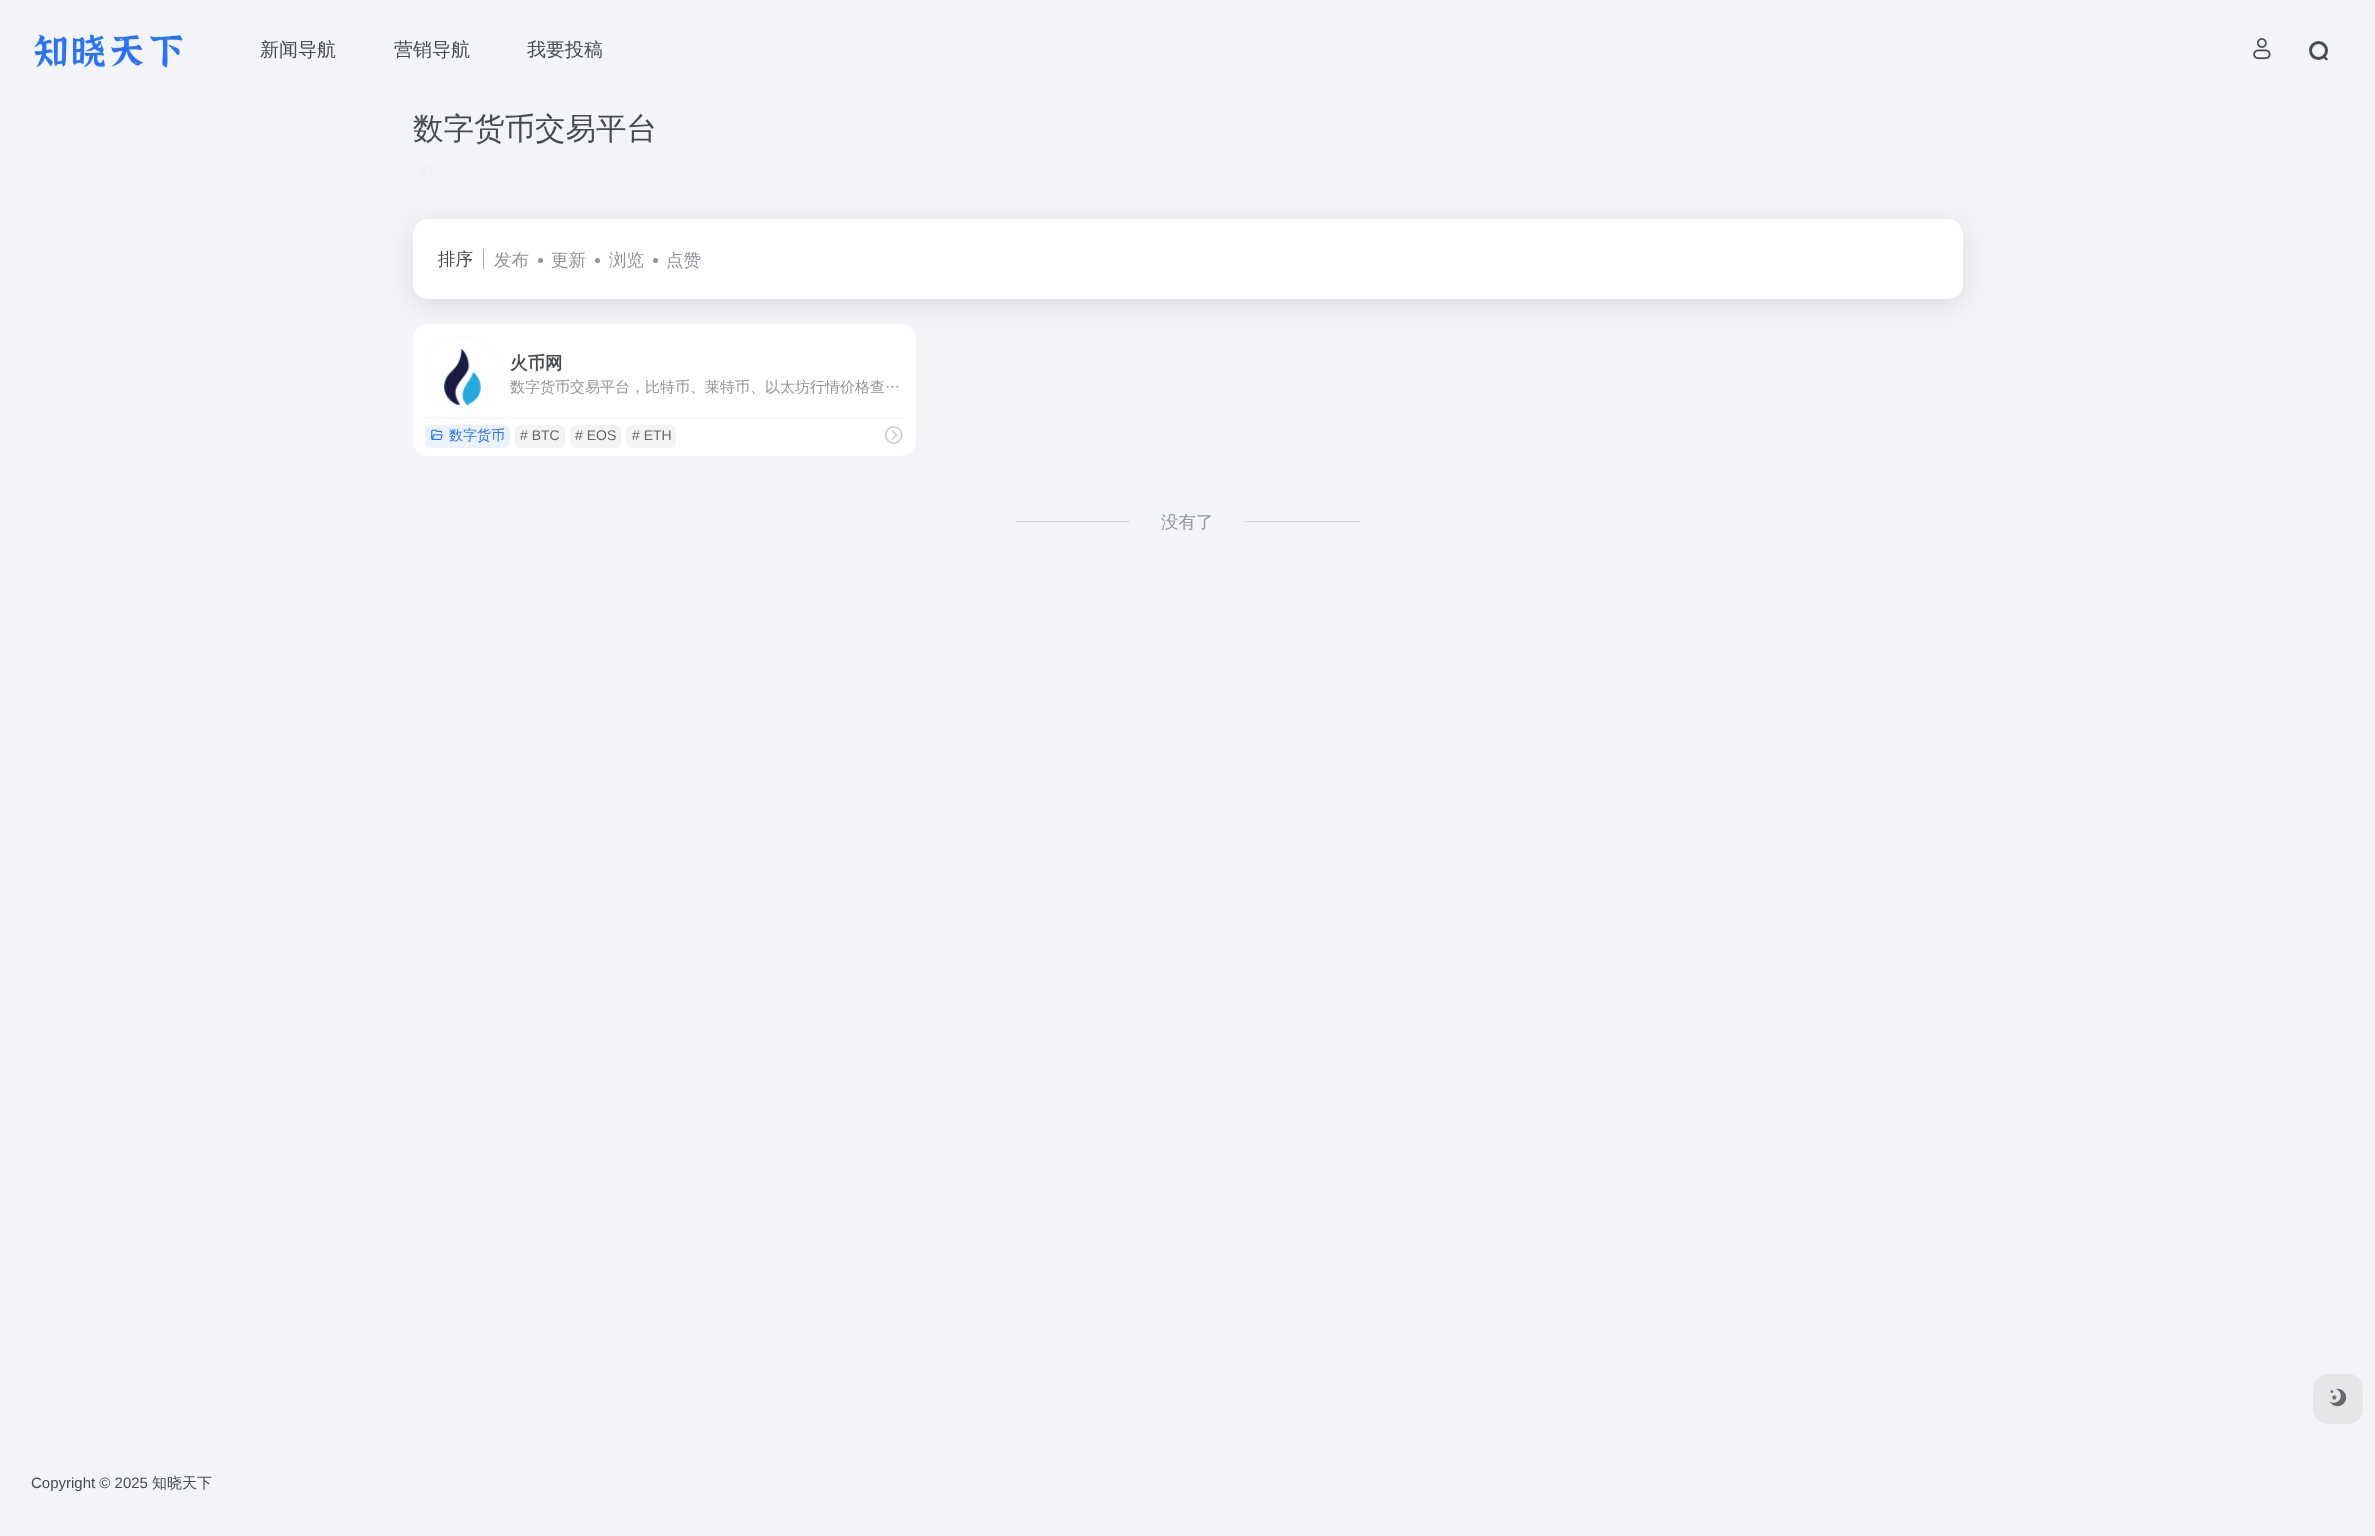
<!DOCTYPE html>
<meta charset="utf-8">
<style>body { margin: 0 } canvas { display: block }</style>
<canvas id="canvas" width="2375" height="1536"></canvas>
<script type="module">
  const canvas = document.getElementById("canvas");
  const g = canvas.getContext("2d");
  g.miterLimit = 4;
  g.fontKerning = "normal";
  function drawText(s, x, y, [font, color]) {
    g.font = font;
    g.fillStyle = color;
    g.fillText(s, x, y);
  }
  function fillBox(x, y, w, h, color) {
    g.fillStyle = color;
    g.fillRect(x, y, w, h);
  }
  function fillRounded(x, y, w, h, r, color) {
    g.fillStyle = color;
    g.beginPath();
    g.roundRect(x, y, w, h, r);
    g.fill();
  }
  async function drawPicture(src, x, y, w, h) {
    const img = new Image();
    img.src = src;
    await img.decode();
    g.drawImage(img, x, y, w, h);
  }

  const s1 = ["500 19px WenQuanYi Zen Hei", "#484B4F"];
  const s2 = ["500 30.5px WenQuanYi Zen Hei", "#484B4F"];
  const s3 = ["500 17.5px WenQuanYi Zen Hei", "#484B4F"];
  const s4 = ["500 17.5px WenQuanYi Zen Hei", "#93959A"];
  const s5 = ["bold 17.5px WenQuanYi Zen Hei", "#484B4F"];
  const s6 = ["500 15px WenQuanYi Zen Hei", "#93959A"];
  const s7 = ["500 14px WenQuanYi Zen Hei", "#2A74FF"];
  const s8 = ["14px Liberation Sans", "#666666"];
  const s9 = ["15px Liberation Sans", "#484B4F"];
  const s10 = ["500 15px WenQuanYi Zen Hei", "#484B4F"];

  fillBox(0, 0, 2375, 1536, "#F2F4F7");
  await drawPicture("pic1.png", 34, 34, 149, 34);
  drawText("新闻导航", 260, 56, s1);
  drawText("营销导航", 394, 56, s1);
  drawText("我要投稿", 527, 56, s1);
  await drawPicture("pic2.png", 2253, 38, 18, 22);
  g.beginPath();
  g.arc(2318.5, 50.5, 8, 0, Math.PI * 2);
  g.strokeStyle = "#484B4F";
  g.lineWidth = 3;
  g.stroke();
  g.beginPath();
  g.moveTo(2325.5, 56.5);
  g.lineTo(2327.5, 58.5);
  g.bezierCurveTo(2328.5, 60.5, 2326.5, 60.5, 2325, 59.5);
  g.lineTo(2323.5, 57.5);
  g.bezierCurveTo(2323, 56.5, 2324.5, 55.5, 2325.5, 56.5);
  g.closePath();
  g.fill();
  drawText("数字货币交易平台", 413, 139, s2);
  await drawPicture("pic3.png", 420, 165, 12, 11);
  g.fillStyle = "rgba(0, 0, 0, 0.1)";
  g.filter = "blur(12.5px)";
  g.beginPath();
  g.roundRect(413, 225, 1550, 80, 15);
  g.fill();
  g.filter = "none";
  fillRounded(413, 219, 1550, 80, 15, "#FFFFFF");
  drawText("排序", 438, 265, s3);
  fillBox(483, 249, 1, 20, "#A9AAAE");
  drawText("发布", 494, 266, s4);
  g.beginPath();
  g.arc(540.5, 260.5, 2.5, 0, Math.PI * 2);
  g.fill();
  drawText("更新", 551, 266, s4);
  g.beginPath();
  g.arc(597.5, 260.5, 2.5, 0, Math.PI * 2);
  g.fill();
  drawText("浏览", 609, 266, s4);
  g.beginPath();
  g.arc(655.5, 260.5, 2.5, 0, Math.PI * 2);
  g.fill();
  drawText("点赞", 666, 266, s4);
  fillRounded(413, 324, 503, 132, 15, "#FFFFFF");
  g.fillStyle = "#F1F1F1";
  g.beginPath();
  g.arc(462.5, 373.5, 37.5, 0, Math.PI * 2);
  g.fill();
  await drawPicture("pic4.png", 425, 336, 75, 75);
  drawText("火币网", 510, 369, s5);
  drawText("数字货币交易平台，比特币、莱特币、以太坊行情价格查…", 510, 392, s6);
  fillBox(425, 418, 479, 1, "#F1F1F1");
  fillRounded(425, 425, 85, 23, 5, "#EAF1FF");
  await drawPicture("pic5.png", 431, 429, 12, 11);
  drawText("数字货币", 449, 440, s7);
  fillRounded(515, 425, 50, 23, 5, "#F3F3F3");
  drawText("# BTC", 520, 440, s8);
  fillRounded(570, 425, 51, 23, 5, "#F3F3F3");
  drawText("# EOS", 575, 440, s8);
  fillRounded(626, 425, 50, 23, 5, "#F3F3F3");
  drawText("# ETH", 632, 440, s8);
  await drawPicture("pic6.png", 885, 426, 18, 18);
  fillBox(1015, 521, 115, 1, "#D6D8DB");
  drawText("没有了", 1161, 528, s4);
  fillBox(1245, 521, 115, 1, "#D6D8DB");
  fillRounded(2313, 1374, 50, 50, 15, "#E5E6E7");
  await drawPicture("pic7.png", 2329, 1388, 18, 19);
  drawText("Copyright © 2025", 31, 1488, s9);
  drawText("知晓天下", 152, 1488, s10);
</script>
